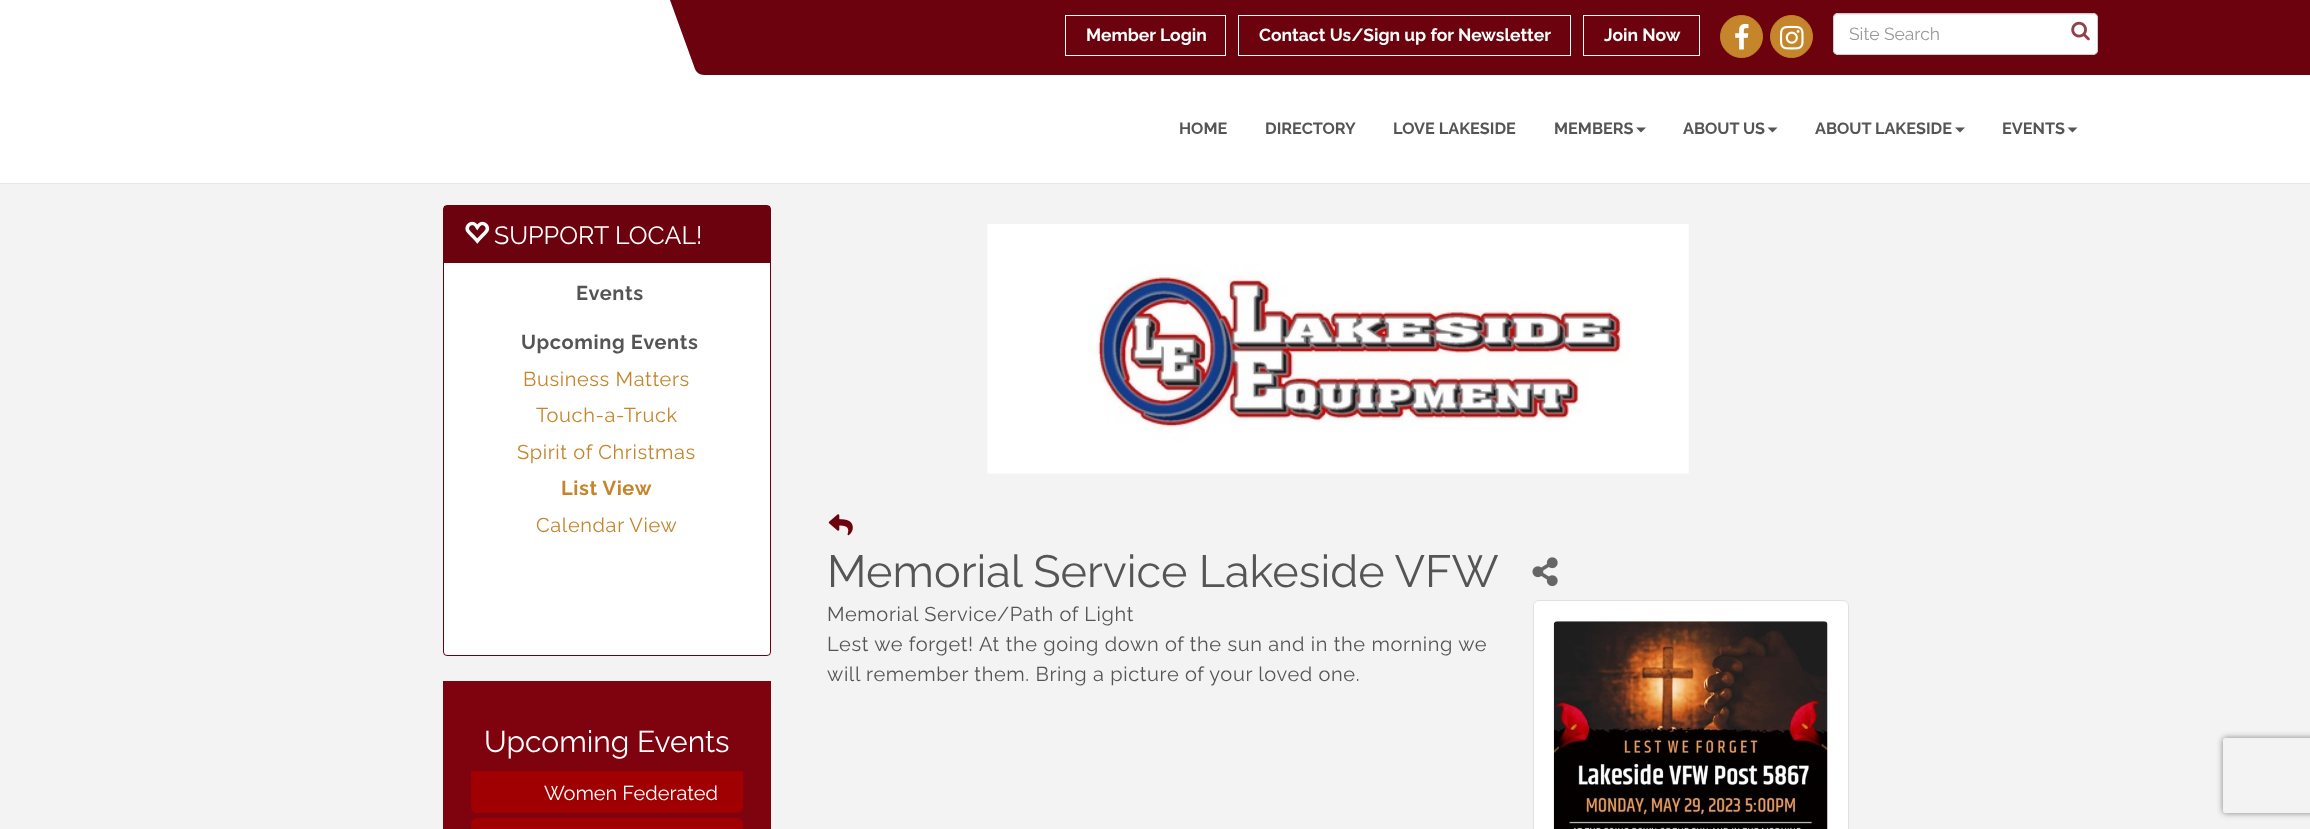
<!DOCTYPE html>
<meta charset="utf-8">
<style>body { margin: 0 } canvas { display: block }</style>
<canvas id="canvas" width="2310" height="829"></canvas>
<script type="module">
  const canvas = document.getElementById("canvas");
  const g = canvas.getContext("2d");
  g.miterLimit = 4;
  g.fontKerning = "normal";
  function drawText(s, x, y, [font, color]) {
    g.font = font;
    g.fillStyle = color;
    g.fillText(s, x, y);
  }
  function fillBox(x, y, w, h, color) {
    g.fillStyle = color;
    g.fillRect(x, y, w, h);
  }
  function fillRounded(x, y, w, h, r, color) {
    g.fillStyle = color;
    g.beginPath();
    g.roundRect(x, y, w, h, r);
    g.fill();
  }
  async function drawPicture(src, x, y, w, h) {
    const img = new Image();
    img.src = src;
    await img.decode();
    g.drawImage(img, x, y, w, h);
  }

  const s1 = ["bold 17.5px Raleway", "#F7FDFB"];
  const s2 = ["17.5px Raleway", "#999999"];
  const s3 = ["bold 16.25px Raleway", "#555555"];
  const s4 = ["25px Raleway", "#FFFFFF"];
  const s5 = ["bold 20px Raleway", "#555555"];
  const s6 = ["20px Raleway", "#C5852B"];
  const s7 = ["bold 20px Raleway", "#C5852B"];
  const s8 = ["30px Raleway", "#FFFFFF"];
  const s9 = ["20px Raleway", "#FFFFFF"];
  const s10 = ["45px Raleway", "#555555"];
  const s11 = ["20px Raleway", "#555555"];

  fillBox(0, 0, 2310, 829, "#F3F3F3");
  fillBox(0, 0, 2310, 183, "#FFFFFF");
  fillBox(0, 183, 2310, 1, "#E6E6E6");
  g.fillStyle = "#6B020D";
  g.beginPath();
  g.moveTo(670, 0);
  g.lineTo(2084, 0);
  g.lineTo(2111, 75);
  g.lineTo(704, 75);
  g.bezierCurveTo(700, 75, 696, 72, 695, 69);
  g.closePath();
  g.fill();
  g.strokeStyle = "#F7FDFB";
  g.strokeRect(1065.5, 15.5, 160, 40);
  drawText("Member Login", 1086, 41, s1);
  g.strokeRect(1238.5, 15.5, 332, 40);
  drawText("Contact Us/Sign up for Newsletter", 1259, 41, s1);
  g.strokeRect(1583.5, 15.5, 116, 40);
  drawText("Join Now", 1604, 41, s1);
  g.fillStyle = "#C5852B";
  g.beginPath();
  g.arc(1741.5, 36.5, 21, 0, Math.PI * 2);
  g.fill();
  g.strokeStyle = "#C5852B";
  g.stroke();
  await drawPicture("pic1.png", 1735, 23, 14, 27);
  g.beginPath();
  g.arc(1791.5, 36.5, 21, 0, Math.PI * 2);
  g.fill();
  g.stroke();
  await drawPicture("pic2.png", 1780, 25, 24, 25);
  g.fillStyle = "#6B020D";
  g.beginPath();
  g.moveTo(2083, 0);
  g.lineTo(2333, 0);
  g.lineTo(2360, 75);
  g.lineTo(2110, 75);
  g.closePath();
  g.fill();
  fillRounded(1833, 13, 265, 42, 5, "#FFFFFF");
  g.fillStyle = "#ECECEC";
  g.beginPath();
  g.moveTo(1838, 15);
  g.lineTo(2092, 15);
  g.bezierCurveTo(2095, 15, 2096, 17, 2096, 19);
  g.lineTo(2096, 18);
  g.bezierCurveTo(2096, 16, 2094, 14, 2092, 14);
  g.lineTo(1838, 14);
  g.bezierCurveTo(1836, 14, 1834, 16, 1834, 18);
  g.lineTo(1834, 19);
  g.bezierCurveTo(1834, 17, 1835, 15, 1838, 15);
  g.closePath();
  g.fill();
  g.beginPath();
  g.roundRect(1833.5, 13.5, 264, 41, 4.5);
  g.strokeStyle = "#CCCCCC";
  g.stroke();
  drawText("Site Search", 1849, 40, s2);
  await drawPicture("pic3.png", 2071, 21, 19, 20);
  drawText("HOME", 1179, 134, s3);
  drawText("DIRECTORY", 1265, 134, s3);
  drawText("LOVE LAKESIDE", 1393, 134, s3);
  drawText("MEMBERS", 1554, 134, s3);
  g.beginPath();
  g.moveTo(1636, 127.5);
  g.lineTo(1646, 127.5);
  g.lineTo(1641, 132.5);
  g.closePath();
  g.fill();
  drawText("ABOUT US", 1683, 134, s3);
  g.beginPath();
  g.moveTo(1767.5, 127.5);
  g.lineTo(1777.5, 127.5);
  g.lineTo(1772.5, 132.5);
  g.closePath();
  g.fill();
  drawText("ABOUT LAKESIDE", 1815, 134, s3);
  g.beginPath();
  g.moveTo(1955, 127.5);
  g.lineTo(1965, 127.5);
  g.lineTo(1960, 132.5);
  g.closePath();
  g.fill();
  drawText("EVENTS", 2002, 134, s3);
  g.beginPath();
  g.moveTo(2067.5, 127.5);
  g.lineTo(2077.5, 127.5);
  g.lineTo(2072.5, 132.5);
  g.closePath();
  g.fill();
  g.fillStyle = "#FFFFFF";
  g.beginPath();
  g.roundRect(443.5, 205.5, 327, 450, 3.5);
  g.fill();
  g.strokeStyle = "#6B020D";
  g.stroke();
  fillBox(444, 206, 326, 57, "#6B020D");
  await drawPicture("pic4.png", 465, 221, 25, 23);
  drawText("SUPPORT LOCAL!", 494, 244, s4);
  g.letterSpacing = "0.62px";
  drawText("Events", 576, 300, s5);
  drawText("Upcoming Events", 521, 349, s5);
  drawText("Business Matters", 523, 386, s6);
  drawText("Touch-a-Truck", 536, 422, s6);
  drawText("Spirit of Christmas", 517, 459, s6);
  drawText("List View", 561, 495, s7);
  drawText("Calendar View", 536, 532, s6);
  fillBox(443, 681, 328, 148, "#7F020F");
  g.letterSpacing = "0px";
  drawText("Upcoming Events", 484, 752, s8);
  g.fillStyle = "#A00001";
  g.beginPath();
  g.roundRect(471, 771, 272, 42, [0, 0, 6, 6]);
  g.fill();
  drawText("Women Federated", 544, 800, s9);
  fillRounded(471, 818, 272, 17, 6, "#A00001");
  await drawPicture("pic5.png", 987, 224, 702, 250);
  await drawPicture("pic6.png", 828, 514, 25, 22);
  drawText("Memorial Service Lakeside VFW", 827, 587, s10);
  await drawPicture("pic7.png", 1532, 557, 26, 30);
  g.letterSpacing = "0.62px";
  drawText("Memorial Service/Path of Light", 827, 621, s11);
  drawText("Lest we forget! At the going down of the sun and in the morning we", 827, 651, s11);
  drawText("will remember them. Bring a picture of your loved one.", 827, 681, s11);
  fillRounded(1533, 600, 316, 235, 6, "#FFFFFF");
  g.beginPath();
  g.roundRect(1533.5, 600.5, 315, 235, 5.5);
  g.strokeStyle = "rgba(0, 0, 0, 0.12)";
  g.stroke();
  await drawPicture("pic8.png", 1553, 621, 275, 208);
  g.save();
  g.beginPath();
  g.moveTo(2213, 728);
  g.lineTo(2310, 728);
  g.lineTo(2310, 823);
  g.lineTo(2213, 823);
  g.closePath();
  g.moveTo(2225.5, 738);
  g.lineTo(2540.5, 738);
  g.bezierCurveTo(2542, 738, 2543, 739, 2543, 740.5);
  g.lineTo(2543, 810.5);
  g.bezierCurveTo(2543, 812, 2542, 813, 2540.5, 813);
  g.lineTo(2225.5, 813);
  g.bezierCurveTo(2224, 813, 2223, 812, 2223, 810.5);
  g.lineTo(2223, 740.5);
  g.bezierCurveTo(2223, 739, 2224, 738, 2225.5, 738);
  g.closePath();
  g.clip("evenodd");
  g.fillStyle = "#808080";
  g.filter = "blur(3px)";
  g.beginPath();
  g.roundRect(2223, 738, 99, 75, 2.5);
  g.fill();
  g.filter = "none";
  g.restore();
</script>
